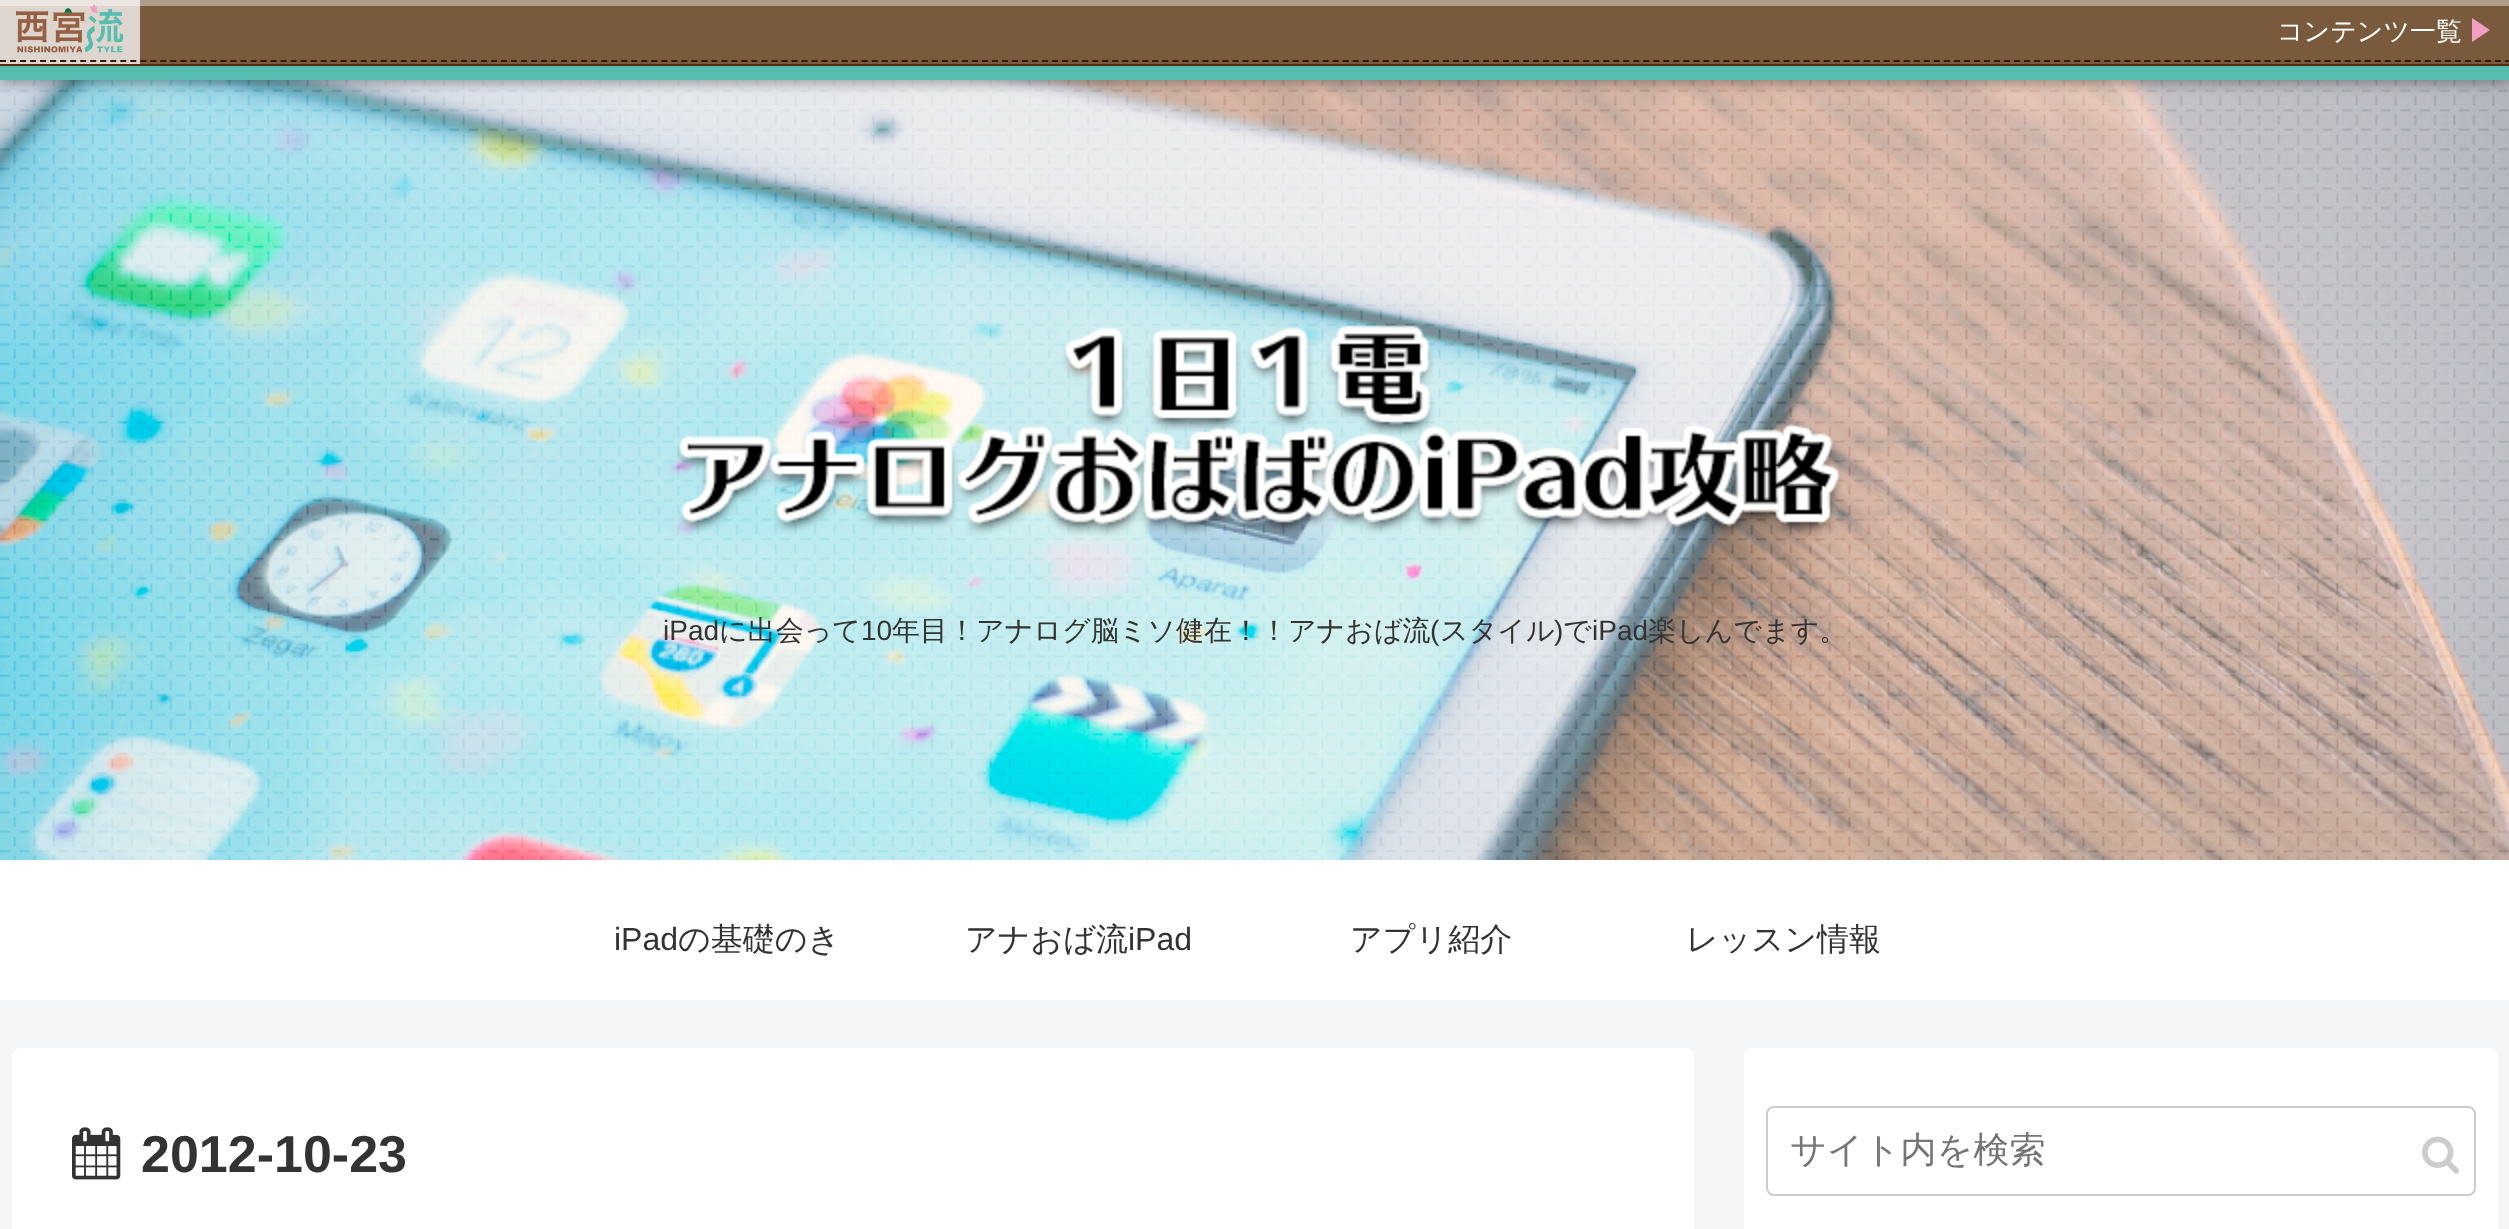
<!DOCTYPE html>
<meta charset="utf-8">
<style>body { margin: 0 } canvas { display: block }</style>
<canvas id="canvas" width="2509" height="1229"></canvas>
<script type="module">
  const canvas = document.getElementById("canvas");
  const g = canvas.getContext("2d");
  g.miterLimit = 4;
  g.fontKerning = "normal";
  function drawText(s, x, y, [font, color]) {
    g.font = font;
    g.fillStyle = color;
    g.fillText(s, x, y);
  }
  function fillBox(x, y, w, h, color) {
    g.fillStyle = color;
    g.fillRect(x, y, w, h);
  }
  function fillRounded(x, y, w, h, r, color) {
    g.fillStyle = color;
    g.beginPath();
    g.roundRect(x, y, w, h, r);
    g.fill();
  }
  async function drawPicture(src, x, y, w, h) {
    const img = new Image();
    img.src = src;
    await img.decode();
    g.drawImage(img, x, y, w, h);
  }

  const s1 = ["500 26px WenQuanYi Zen Hei", "#FFFFFF"];
  const s2 = ["28px Liberation Sans", "#333333"];
  const s3 = ["500 28px WenQuanYi Zen Hei", "#333333"];
  const s4 = ["32px Liberation Sans", "#333333"];
  const s5 = ["500 32px WenQuanYi Zen Hei", "#333333"];
  const s6 = ["bold 52px Liberation Sans", "#333333"];
  const s7 = ["500 36px WenQuanYi Zen Hei", "#757575"];

  fillBox(0, 0, 2509, 1229, "#F4F5F7");
  await drawPicture("pic2.png", 0, 80, 2509, 780);
  g.fillStyle = "rgba(0, 0, 0, 0.3)";
  g.filter = "blur(6px)";
  g.beginPath();
  g.rect(0, 4, 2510, 80);
  g.fill();
  g.filter = "none";
  fillBox(0, 66, 2509, 14, "#57BDB1");
  fillBox(140, 0, 2369, 6, "#AF9C8A");
  fillBox(0, 0, 140, 6, "#EBE6E2");
  fillBox(0, 6, 140, 58, "#DED6CE");
  await drawPicture("pic1.png", 16, 4, 108, 49);
  fillBox(140, 6, 2369, 58, "#795A3C");
  fillBox(0, 64, 2509, 2, "#542F0A");
  drawText("コンテンツ一覧", 2277, 40, s1);
  g.fillStyle = "#F19EC2";
  g.beginPath();
  g.moveTo(2472, 42);
  g.lineTo(2472, 18);
  g.lineTo(2490, 30);
  g.closePath();
  g.fill();
  g.beginPath();
  g.moveTo(0, 61);
  g.lineTo(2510, 61);
  g.strokeStyle = "#321807";
  g.lineWidth = 2;
  g.setLineDash([6, 4.02]);
  g.stroke();
  fillBox(0, 860, 2509, 140, "#FFFFFF");
  await drawPicture("pic3.png", 677, 325, 1165, 211);
  drawText("iPad", 663, 640, s2);
  drawText("に出会って", 719, 640, s3);
  drawText("10", 861, 640, s2);
  drawText("年目！アナログ脳ミソ健在！！アナおば流", 892, 640, s3);
  drawText("(", 1430, 640, s2);
  drawText("スタイル", 1440, 640, s3);
  drawText(")", 1554, 640, s2);
  drawText("で", 1563, 640, s3);
  drawText("iPad", 1592, 640, s2);
  drawText("楽しんでます。", 1648, 640, s3);
  drawText("iPad", 614, 950, s4);
  drawText("の基礎のき", 678, 950, s5);
  drawText("アナおば流", 965, 950, s5);
  drawText("iPad", 1128, 950, s4);
  drawText("アプリ紹介", 1350, 950, s5);
  drawText("レッスン情報", 1686, 950, s5);
  fillRounded(12, 1048, 1682, 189, 8, "#FFFFFF");
  await drawPicture("pic4.png", 72, 1127, 49, 53);
  drawText("2012-10-23", 141, 1172, s6);
  fillRounded(1744, 1048, 754, 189, 8, "#FFFFFF");
  g.beginPath();
  g.roundRect(1767, 1107, 708, 88, 7);
  g.strokeStyle = "#CCCCCC";
  g.setLineDash([]);
  g.stroke();
  drawText("サイト内を検索", 1790, 1162, s7);
  await drawPicture("pic5.png", 2422, 1136, 37, 38);
</script>
